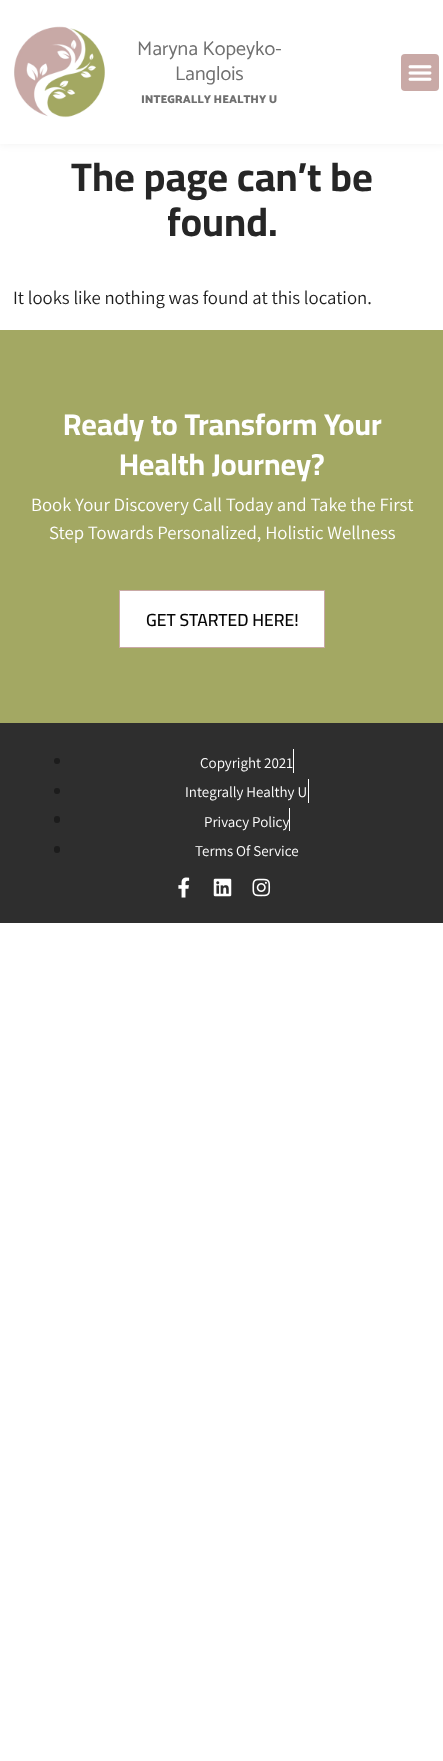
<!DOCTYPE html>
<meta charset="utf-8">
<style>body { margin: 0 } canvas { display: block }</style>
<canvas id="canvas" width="443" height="1761"></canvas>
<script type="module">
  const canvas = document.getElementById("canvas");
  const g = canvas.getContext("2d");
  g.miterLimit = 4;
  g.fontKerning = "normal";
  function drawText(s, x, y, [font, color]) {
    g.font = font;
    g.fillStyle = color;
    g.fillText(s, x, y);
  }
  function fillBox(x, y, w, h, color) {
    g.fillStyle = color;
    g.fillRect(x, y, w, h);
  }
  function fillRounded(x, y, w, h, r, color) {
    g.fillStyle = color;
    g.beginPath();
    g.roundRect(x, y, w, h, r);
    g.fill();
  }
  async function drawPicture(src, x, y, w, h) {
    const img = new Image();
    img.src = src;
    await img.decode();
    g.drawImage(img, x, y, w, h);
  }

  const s1 = ["20px Catamaran", "#707070"];
  const s2 = ["900 11.25px Catamaran", "#707070"];
  const s3 = ["bold 40px Cairo", "#262626"];
  const s4 = ["18.75px Assistant", "#1C1C1C"];
  const s5 = ["bold 30px Cairo", "#FFFFFF"];
  const s6 = ["18.75px Assistant", "#FFFFFF"];
  const s7 = ["600 17.5px Cairo", "#050505"];
  const s8 = ["15px Assistant", "#FFFFFF"];

  fillBox(0, 0, 443, 1761, "#FFFFFF");
  g.fillStyle = "rgba(0, 0, 0, 0.06)";
  g.filter = "blur(4px)";
  g.beginPath();
  g.rect(0, 0, 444, 144);
  g.fill();
  g.filter = "none";
  fillBox(0, 0, 443, 144, "#FFFFFF");
  await drawPicture("pic1.png", 14, 26, 91, 92);
  drawText("Maryna Kopeyko-", 137, 55, s1);
  drawText("Langlois", 175, 80, s1);
  drawText("INTEGRALLY HEALTHY U", 141, 103, s2);
  fillRounded(401, 54, 38, 37, 4, "#C9A9A6");
  await drawPicture("pic2.png", 408, 65, 24, 16);
  drawText("The page can’t be", 71, 191, s3);
  drawText("found.", 167, 236, s3);
  drawText("It looks like nothing was found at this location.", 13, 304, s4);
  fillBox(0, 330, 443, 393, "#A3A863");
  drawText("Ready to Transform Your", 63, 435, s5);
  drawText("Health Journey?", 119, 475, s5);
  drawText("Book Your Discovery Call Today and Take the First", 31, 511, s6);
  drawText("Step Towards Personalized, Holistic Wellness", 49, 539, s6);
  g.beginPath();
  g.rect(119.5, 590.5, 205, 57);
  g.fill();
  g.strokeStyle = "#C9A9A6";
  g.stroke();
  drawText("GET STARTED HERE!", 146, 626, s7);
  fillBox(0, 723, 443, 200, "#2E2E2E");
  g.fillStyle = "#1C1C1C";
  g.beginPath();
  g.arc(57, 761, 3, 0, Math.PI * 2);
  g.fill();
  drawText("Copyright 2021", 200, 768, s8);
  fillBox(293, 749, 1, 24, "#FFFFFF");
  g.fillStyle = "#1C1C1C";
  g.beginPath();
  g.arc(57, 791, 3, 0, Math.PI * 2);
  g.fill();
  drawText("Integrally Healthy U", 185, 797, s8);
  fillBox(308, 779, 1, 24, "#FFFFFF");
  fillRounded(54, 816, 6, 7, 3, "#1C1C1C");
  drawText("Privacy Policy", 204, 827, s8);
  fillBox(289, 808, 1, 23, "#FFFFFF");
  fillRounded(54, 846, 6, 7, 3, "#1C1C1C");
  drawText("Terms Of Service", 195, 856, s8);
  await drawPicture("pic3.png", 178, 877, 12, 21);
  await drawPicture("pic4.png", 213, 878, 19, 19);
  await drawPicture("pic5.png", 252, 878, 19, 19);
</script>
